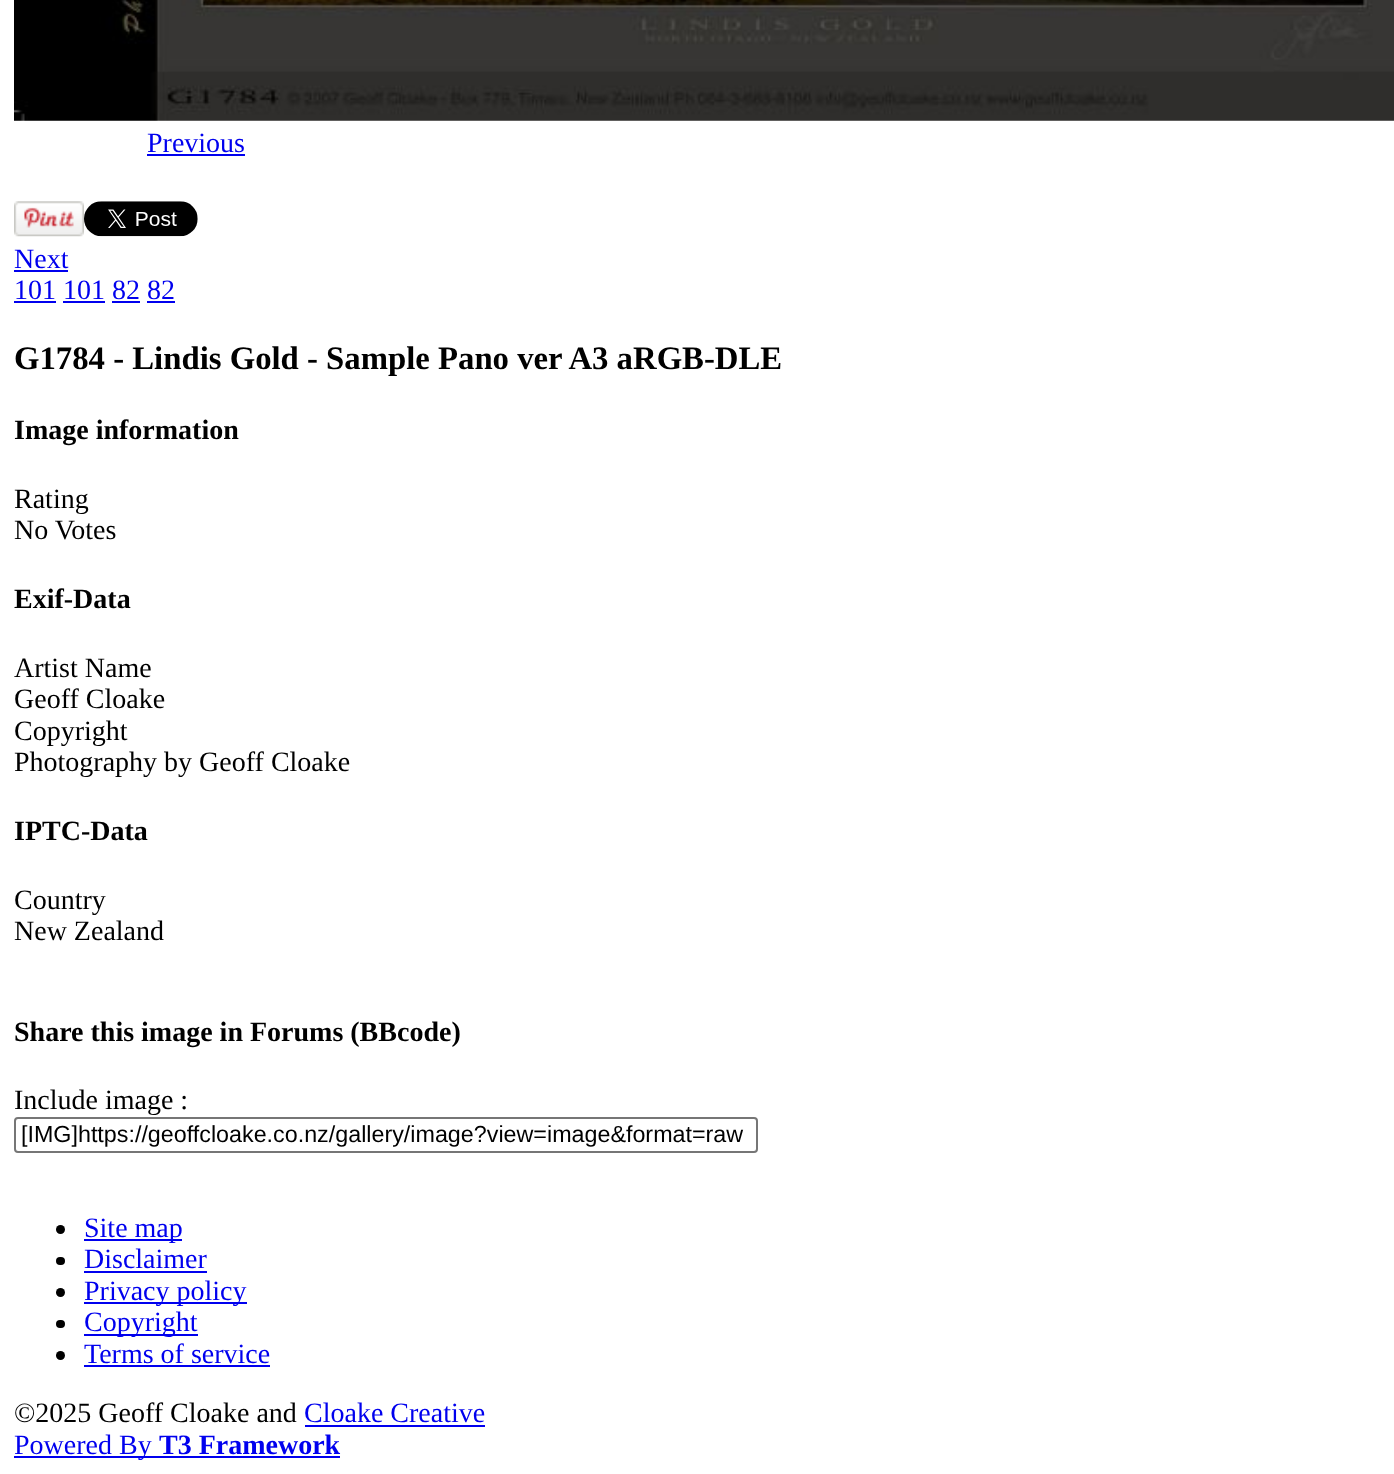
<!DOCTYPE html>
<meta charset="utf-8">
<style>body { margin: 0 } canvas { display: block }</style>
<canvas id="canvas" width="1394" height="1474"></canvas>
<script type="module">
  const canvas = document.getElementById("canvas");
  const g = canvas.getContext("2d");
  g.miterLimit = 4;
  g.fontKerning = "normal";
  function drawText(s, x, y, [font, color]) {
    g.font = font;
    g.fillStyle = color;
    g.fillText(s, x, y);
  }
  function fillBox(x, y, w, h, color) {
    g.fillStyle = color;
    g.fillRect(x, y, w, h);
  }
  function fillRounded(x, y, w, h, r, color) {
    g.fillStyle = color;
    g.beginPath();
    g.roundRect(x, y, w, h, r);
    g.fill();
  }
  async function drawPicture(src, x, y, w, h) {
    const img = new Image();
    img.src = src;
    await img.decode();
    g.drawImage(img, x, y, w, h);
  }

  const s1 = ["28px Liberation Serif", "#0000EE"];
  const s2 = ["bold 32.75px Liberation Serif", "#000000"];
  const s3 = ["bold 28px Liberation Serif", "#000000"];
  const s4 = ["28px Liberation Serif", "#000000"];
  const s5 = ["23.3px Liberation Sans", "#000000"];
  const s6 = ["bold 28px Liberation Serif", "#0000EE"];

  fillBox(0, 0, 1394, 1474, "#FFFFFF");
  await drawPicture("pic1.png", 14, 0, 1380, 121);
  drawText("Previous", 147, 152, s1);
  fillBox(147, 154, 98, 2, "#0000EE");
  await drawPicture("pic2.png", 14, 201, 70, 36);
  await drawPicture("pic3.png", 84, 201, 114, 36);
  drawText("Next", 14, 268, s1);
  fillBox(14, 270, 54, 2, "#0000EE");
  drawText("101 101 82 82", 14, 299, s1);
  fillBox(14, 301, 42, 2, "#0000EE");
  fillBox(63, 301, 42, 2, "#0000EE");
  fillBox(112, 301, 28, 2, "#0000EE");
  fillBox(147, 301, 28, 2, "#0000EE");
  drawText("G1784 - Lindis Gold - Sample Pano ver A3 aRGB-DLE", 14, 369, s2);
  drawText("Image information", 14, 439, s3);
  drawText("Rating", 14, 508, s4);
  drawText("No Votes", 14, 539, s4);
  drawText("Exif-Data", 14, 608, s3);
  drawText("Artist Name", 14, 677, s4);
  drawText("Geoff Cloake", 14, 708, s4);
  drawText("Copyright", 14, 740, s4);
  drawText("Photography by Geoff Cloake", 14, 771, s4);
  drawText("IPTC-Data", 14, 840, s3);
  drawText("Country", 14, 909, s4);
  drawText("New Zealand", 14, 940, s4);
  drawText("Share this image in Forums (BBcode)", 14, 1041, s3);
  drawText("Include image :", 14, 1109, s4);
  g.beginPath();
  g.roundRect(15, 1118, 742, 34, 3);
  g.strokeStyle = "#767676";
  g.lineWidth = 2;
  g.stroke();
  drawText("[IMG]https://geoffcloake.co.nz/gallery/image?view=image&format=raw", 21, 1142, s5);
  g.beginPath();
  g.arc(60.5, 1229.5, 4.5, 0, Math.PI * 2);
  g.fill();
  fillBox(84, 1239, 98, 2, "#0000EE");
  drawText("Site map", 84, 1237, s1);
  fillRounded(56, 1257, 9, 8, 4, "#000000");
  drawText("Disclaimer", 84, 1268, s1);
  fillBox(84, 1271, 123, 2, "#0000EE");
  g.fillStyle = "#000000";
  g.beginPath();
  g.arc(60.5, 1292.5, 4.5, 0, Math.PI * 2);
  g.fill();
  fillBox(84, 1302, 163, 2, "#0000EE");
  drawText("Privacy policy", 84, 1300, s1);
  fillRounded(56, 1320, 9, 8, 4, "#000000");
  fillBox(84, 1334, 114, 2, "#0000EE");
  drawText("Copyright", 84, 1331, s1);
  g.fillStyle = "#000000";
  g.beginPath();
  g.arc(60.5, 1355.5, 4.5, 0, Math.PI * 2);
  g.fill();
  drawText("Terms of service", 84, 1363, s1);
  fillBox(84, 1365, 186, 2, "#0000EE");
  drawText("©2025 Geoff Cloake and", 14, 1422, s4);
  drawText("Cloake Creative", 304, 1422, s1);
  fillBox(305, 1425, 180, 2, "#0000EE");
  fillBox(14, 1456, 326, 2, "#0000EE");
  drawText("Powered By", 14, 1454, s1);
  drawText("T3 Framework", 159, 1454, s6);
</script>
